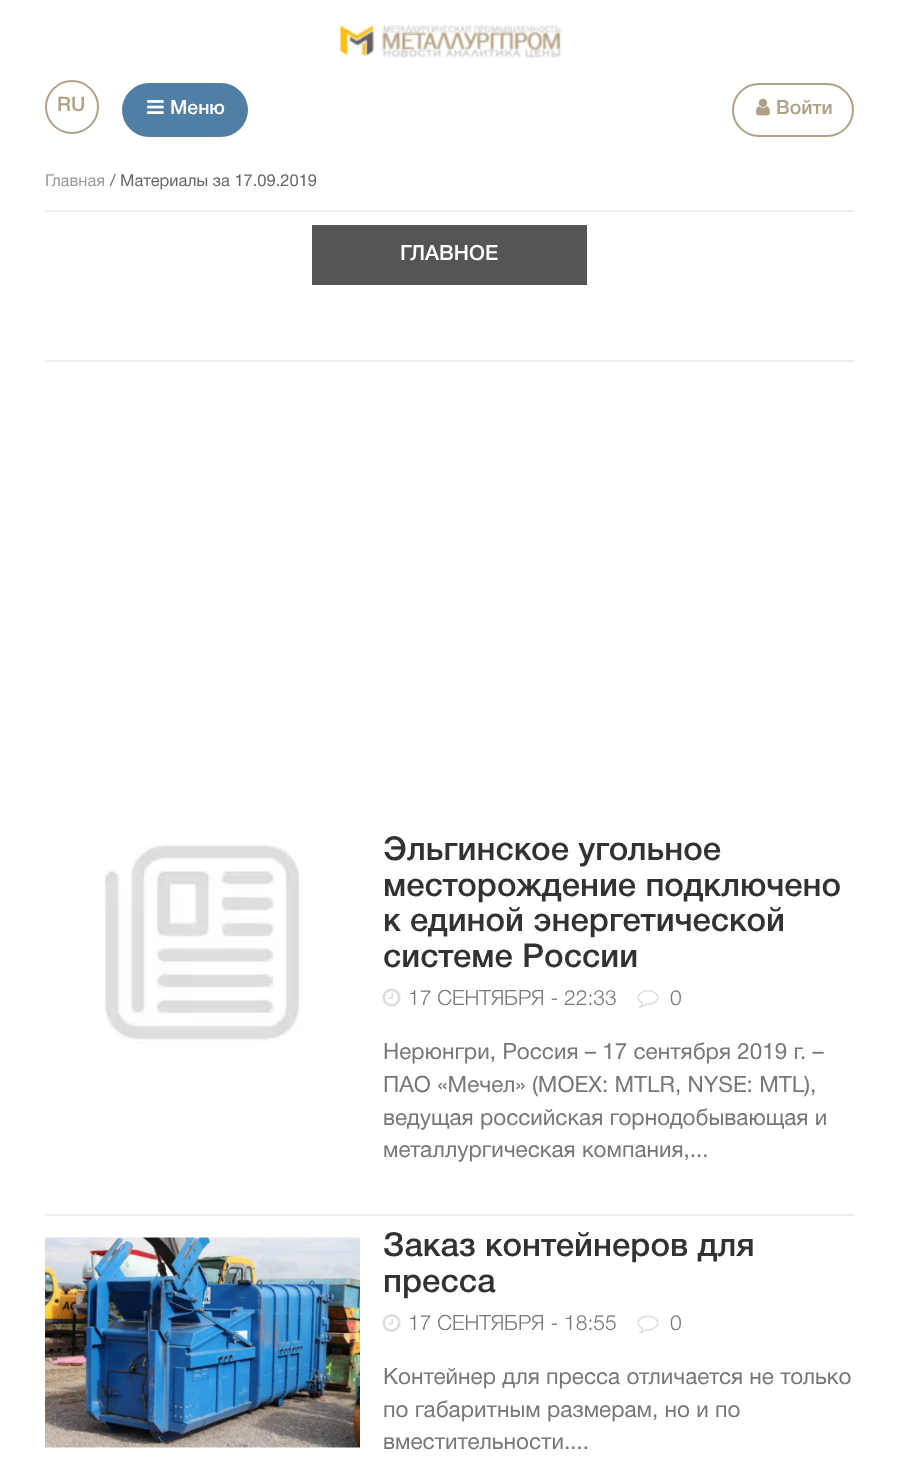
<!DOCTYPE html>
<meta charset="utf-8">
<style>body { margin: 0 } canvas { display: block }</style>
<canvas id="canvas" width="898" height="1464"></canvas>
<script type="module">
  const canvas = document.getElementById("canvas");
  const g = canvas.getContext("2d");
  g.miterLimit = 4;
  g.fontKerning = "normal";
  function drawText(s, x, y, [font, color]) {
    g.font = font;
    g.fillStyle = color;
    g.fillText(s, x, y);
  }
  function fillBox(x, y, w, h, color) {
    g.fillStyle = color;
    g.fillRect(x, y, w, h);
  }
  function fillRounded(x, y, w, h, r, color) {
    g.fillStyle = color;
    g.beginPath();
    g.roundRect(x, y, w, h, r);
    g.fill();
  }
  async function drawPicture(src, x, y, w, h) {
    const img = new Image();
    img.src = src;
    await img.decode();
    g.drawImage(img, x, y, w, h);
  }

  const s1 = ["500 20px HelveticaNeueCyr", "#AFA185"];
  const s2 = ["500 19.5px HelveticaNeueCyr", "#FFFFFF"];
  const s3 = ["500 19.5px HelveticaNeueCyr", "#AFA185"];
  const s4 = ["16.5px HelveticaNeueCyr", "#999999"];
  const s5 = ["16.5px HelveticaNeueCyr", "#666666"];
  const s6 = ["500 21px HelveticaNeueCyr", "#FFFFFF"];
  const s7 = ["500 33px HelveticaNeueCyr", "#333232"];
  const s8 = ["300 21px HelveticaNeueCyr", "#777777"];
  const s9 = ["22.5px HelveticaNeueCyr", "#777777"];

  fillBox(0, 0, 898, 1464, "#FFFFFF");
  await drawPicture("pic1.png", 339, 25, 223, 34);
  g.beginPath();
  g.arc(72, 107, 26, 0, Math.PI * 2);
  g.strokeStyle = "#AFA185";
  g.lineWidth = 2;
  g.stroke();
  drawText("RU", 57, 111, s1);
  fillRounded(122, 83, 126, 54, 27, "#517FA4");
  await drawPicture("pic2.png", 147, 100, 17, 14);
  drawText("Меню", 170, 114, s2);
  g.beginPath();
  g.roundRect(733, 84, 120, 52, 26);
  g.stroke();
  await drawPicture("pic3.png", 756, 98, 14, 18);
  drawText("Войти", 776, 114, s3);
  fillBox(45, 210, 809, 2, "#EEEEEE");
  drawText("Главная", 45, 186, s4);
  drawText("/ Материалы за 17.09.2019", 110, 186, s5);
  fillBox(45, 360, 809, 2, "#EEEEEE");
  fillBox(312, 225, 275, 60, "#555555");
  drawText("ГЛАВНОЕ", 400, 260, s6);
  await drawPicture("pic4.png", 104, 844, 199, 200);
  drawText("Эльгинское угольное", 383, 860, s7);
  drawText("месторождение подключено", 383, 896, s7);
  drawText("к единой энергетической", 383, 931, s7);
  drawText("системе России", 383, 967, s7);
  await drawPicture("pic5.png", 382, 988, 19, 19);
  drawText("17 СЕНТЯБРЯ - 22:33", 408, 1005, s8);
  await drawPicture("pic6.png", 637, 990, 22, 18);
  drawText("0", 670, 1005, s8);
  drawText("Нерюнгри, Россия – 17 сентября 2019 г. –", 383, 1059, s9);
  drawText("ПАО «Мечел» (MOEX: MTLR, NYSE: MTL),", 383, 1092, s9);
  drawText("ведущая российская горнодобывающая и", 383, 1125, s9);
  drawText("металлургическая компания,...", 383, 1157, s9);
  fillBox(45, 1214, 809, 2, "#EEEEEE");
  await drawPicture("pic7.png", 45, 1237, 315, 211);
  drawText("Заказ контейнеров для", 383, 1256, s7);
  drawText("пресса", 383, 1292, s7);
  await drawPicture("pic8.png", 382, 1314, 19, 18);
  drawText("17 СЕНТЯБРЯ - 18:55", 408, 1330, s8);
  await drawPicture("pic9.png", 637, 1315, 22, 19);
  drawText("0", 670, 1330, s8);
  drawText("Контейнер для пресса отличается не только", 383, 1384, s9);
  drawText("по габаритным размерам, но и по", 383, 1417, s9);
  drawText("вместительности....", 383, 1449, s9);
</script>
